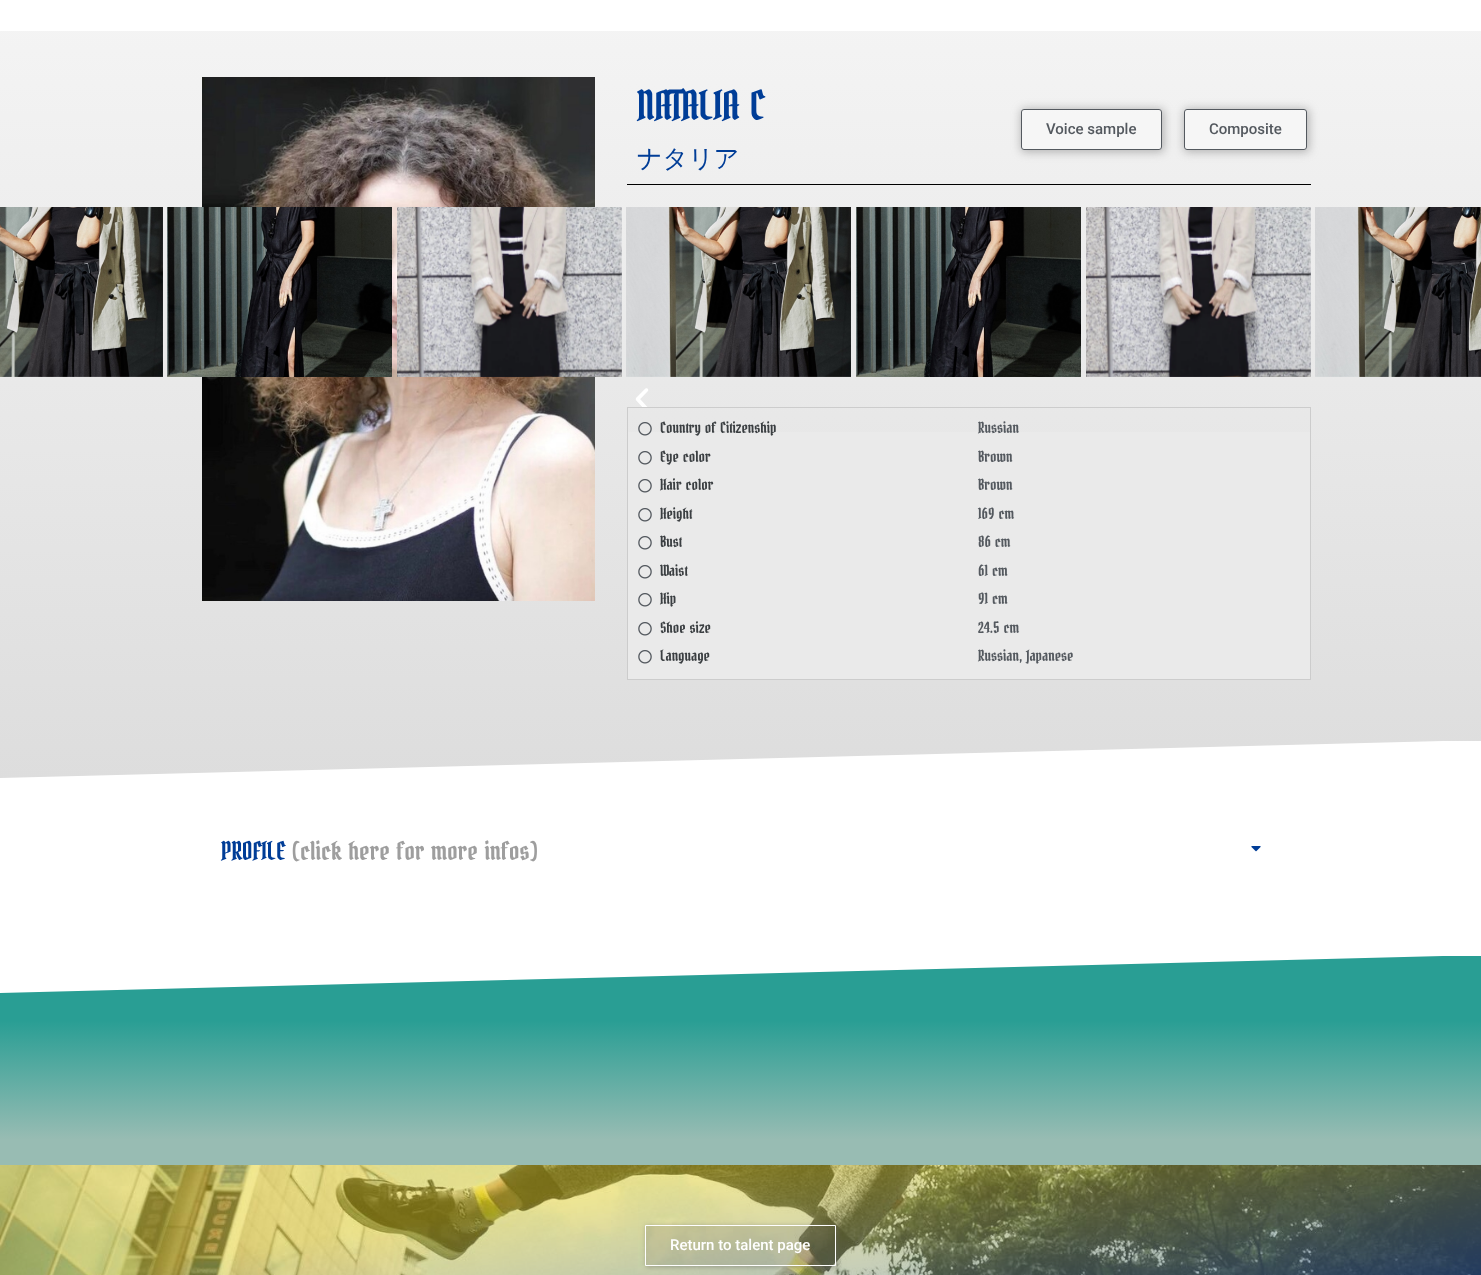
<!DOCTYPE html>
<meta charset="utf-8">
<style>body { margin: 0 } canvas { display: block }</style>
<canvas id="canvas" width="1481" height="1275"></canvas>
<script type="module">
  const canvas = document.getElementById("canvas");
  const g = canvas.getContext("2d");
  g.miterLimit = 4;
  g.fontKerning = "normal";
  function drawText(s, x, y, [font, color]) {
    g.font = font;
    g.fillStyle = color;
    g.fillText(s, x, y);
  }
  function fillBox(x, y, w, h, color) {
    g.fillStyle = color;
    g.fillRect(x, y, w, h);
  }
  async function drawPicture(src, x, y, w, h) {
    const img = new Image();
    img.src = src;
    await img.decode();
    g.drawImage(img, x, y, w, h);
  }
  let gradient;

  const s1 = ["40px Bokor", "#003D97"];
  const s2 = ["500 25px WenQuanYi Zen Hei", "#003D97"];
  const s3 = ["500 15px Roboto", "#54595F"];
  const s4 = ["15px Bokor", "#3B3F42"];
  const s5 = ["15px Bokor", "#54595F"];
  const s6 = ["25px Bokor", "#003D97"];
  const s7 = ["25px Bokor", "#9E9E9E"];
  const s8 = ["500 15px Roboto", "#FFFFFF"];

  fillBox(0, 0, 1481, 1275, "#FFFFFF");
  gradient = g.createLinearGradient(741, 780, 741, 17);
  gradient.addColorStop(0, "#DDDDDD");
  gradient.addColorStop(1, "#F4F4F4");
  g.fillStyle = gradient;
  g.fillRect(0, 31, 1481, 747);
  await drawPicture("pic1.png", 202, 77, 393, 524);
  drawText("NATALIA C", 637, 120, s1);
  drawText("ナタリア", 637, 167, s2);
  g.save();
  g.beginPath();
  g.moveTo(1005, 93);
  g.lineTo(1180, 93);
  g.lineTo(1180, 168);
  g.lineTo(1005, 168);
  g.closePath();
  g.moveTo(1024, 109);
  g.lineTo(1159, 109);
  g.bezierCurveTo(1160.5, 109, 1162, 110.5, 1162, 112);
  g.lineTo(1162, 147);
  g.bezierCurveTo(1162, 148.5, 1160.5, 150, 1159, 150);
  g.lineTo(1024, 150);
  g.bezierCurveTo(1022.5, 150, 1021, 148.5, 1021, 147);
  g.lineTo(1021, 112);
  g.bezierCurveTo(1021, 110.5, 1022.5, 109, 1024, 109);
  g.closePath();
  g.clip("evenodd");
  g.fillStyle = "rgba(114, 114, 114, 0.5)";
  g.filter = "blur(5px)";
  g.beginPath();
  g.roundRect(1021, 109, 143, 43, 4);
  g.fill();
  g.filter = "none";
  g.restore();
  g.fillStyle = "rgba(255, 255, 255, 0.39)";
  g.beginPath();
  g.roundRect(1021.5, 109.5, 140, 40, 2.5);
  g.fill();
  g.strokeStyle = "#54595F";
  g.stroke();
  drawText("Voice sample", 1046, 134, s3);
  g.save();
  g.beginPath();
  g.moveTo(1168, 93);
  g.lineTo(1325, 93);
  g.lineTo(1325, 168);
  g.lineTo(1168, 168);
  g.closePath();
  g.moveTo(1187, 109);
  g.lineTo(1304, 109);
  g.bezierCurveTo(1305.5, 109, 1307, 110.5, 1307, 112);
  g.lineTo(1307, 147);
  g.bezierCurveTo(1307, 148.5, 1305.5, 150, 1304, 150);
  g.lineTo(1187, 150);
  g.bezierCurveTo(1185.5, 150, 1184, 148.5, 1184, 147);
  g.lineTo(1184, 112);
  g.bezierCurveTo(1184, 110.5, 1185.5, 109, 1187, 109);
  g.closePath();
  g.clip("evenodd");
  g.fillStyle = "rgba(114, 114, 114, 0.5)";
  g.filter = "blur(5px)";
  g.beginPath();
  g.roundRect(1184, 109, 125, 43, 4);
  g.fill();
  g.filter = "none";
  g.restore();
  g.fillStyle = "rgba(255, 255, 255, 0.39)";
  g.beginPath();
  g.roundRect(1184.5, 109.5, 122, 40, 2.5);
  g.fill();
  g.stroke();
  drawText("Composite", 1209, 134, s3);
  fillBox(627, 184, 684, 1, "#000000");
  await drawPicture("pic2.png", 0, 207, 163, 170);
  await drawPicture("pic3.png", 167, 207, 225, 170);
  await drawPicture("pic4.png", 397, 207, 225, 170);
  await drawPicture("pic5.png", 626, 207, 225, 170);
  await drawPicture("pic3.png", 856, 207, 225, 170);
  await drawPicture("pic6.png", 1086, 207, 225, 170);
  await drawPicture("pic7.png", 1315, 207, 166, 170);
  await drawPicture("pic8.png", 635, 388, 14, 19);
  fillBox(628, 432, 682, 247, "#EAEAEA");
  g.strokeStyle = "#CCCCCC";
  g.strokeRect(627.5, 407.5, 683, 272);
  await drawPicture("pic9.png", 638, 422, 14, 14);
  drawText("Country of Citizenship", 660, 433, s4);
  await drawPicture("pic9.png", 638, 451, 14, 14);
  drawText("Eye color", 660, 462, s4);
  await drawPicture("pic9.png", 638, 479, 14, 14);
  drawText("Hair color", 660, 490, s4);
  await drawPicture("pic9.png", 638, 508, 14, 14);
  drawText("Height", 660, 519, s4);
  await drawPicture("pic9.png", 638, 536, 14, 14);
  drawText("Bust", 660, 547, s4);
  await drawPicture("pic9.png", 638, 565, 14, 14);
  drawText("Waist", 660, 576, s4);
  await drawPicture("pic9.png", 638, 593, 14, 14);
  drawText("Hip", 660, 604, s4);
  await drawPicture("pic9.png", 638, 622, 14, 14);
  drawText("Shoe size", 660, 633, s4);
  await drawPicture("pic9.png", 638, 650, 14, 14);
  drawText("Language", 660, 661, s4);
  drawText("Russian", 978, 433, s5);
  drawText("Brown", 978, 462, s5);
  drawText("Brown", 978, 490, s5);
  drawText("169 cm", 978, 519, s5);
  drawText("86 cm", 978, 547, s5);
  drawText("61 cm", 978, 576, s5);
  drawText("91 cm", 978, 604, s5);
  drawText("24.5 cm", 978, 633, s5);
  drawText("Russian, Japanese", 978, 661, s5);
  g.save();
  g.beginPath();
  g.rect(0, 741, 1481, 40);
  g.clip();
  g.fillStyle = "#FFFFFF";
  g.beginPath();
  g.moveTo(0, 778);
  g.lineTo(0, 780);
  g.lineTo(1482, 780);
  g.lineTo(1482, 740);
  g.closePath();
  g.fill();
  g.restore();
  drawText("PROFILE", 221, 860, s6);
  drawText("(click here for more infos)", 292, 860, s7);
  await drawPicture("pic10.png", 1251, 846, 10, 6);
  g.save();
  g.beginPath();
  g.rect(0, 956, 1481, 40);
  g.clip();
  g.fillStyle = "#299E94";
  g.beginPath();
  g.moveTo(0, 993);
  g.lineTo(0, 995);
  g.lineTo(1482, 995);
  g.lineTo(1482, 955);
  g.closePath();
  g.fill();
  g.restore();
  gradient = g.createLinearGradient(741, 995, 741, 1165);
  gradient.addColorStop(0.15, "#299E94");
  gradient.addColorStop(0.85, "#98BCB3");
  g.fillStyle = gradient;
  g.fillRect(0, 995, 1481, 170);
  await drawPicture("pic11.png", 0, 1165, 1481, 110);
  g.save();
  g.beginPath();
  g.moveTo(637, 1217);
  g.lineTo(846, 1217);
  g.lineTo(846, 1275);
  g.lineTo(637, 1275);
  g.closePath();
  g.moveTo(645, 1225);
  g.lineTo(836, 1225);
  g.lineTo(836, 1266);
  g.lineTo(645, 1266);
  g.closePath();
  g.clip("evenodd");
  g.fillStyle = "rgba(104, 104, 104, 0.5)";
  g.filter = "blur(2.5px)";
  g.beginPath();
  g.rect(646, 1226, 191, 41);
  g.fill();
  g.filter = "none";
  g.restore();
  g.fillStyle = "rgba(89, 89, 89, 0.18)";
  g.beginPath();
  g.rect(645.5, 1225.5, 190, 40);
  g.fill();
  g.strokeStyle = "#FFFFFF";
  g.stroke();
  drawText("Return to talent page", 670, 1250, s8);
</script>
